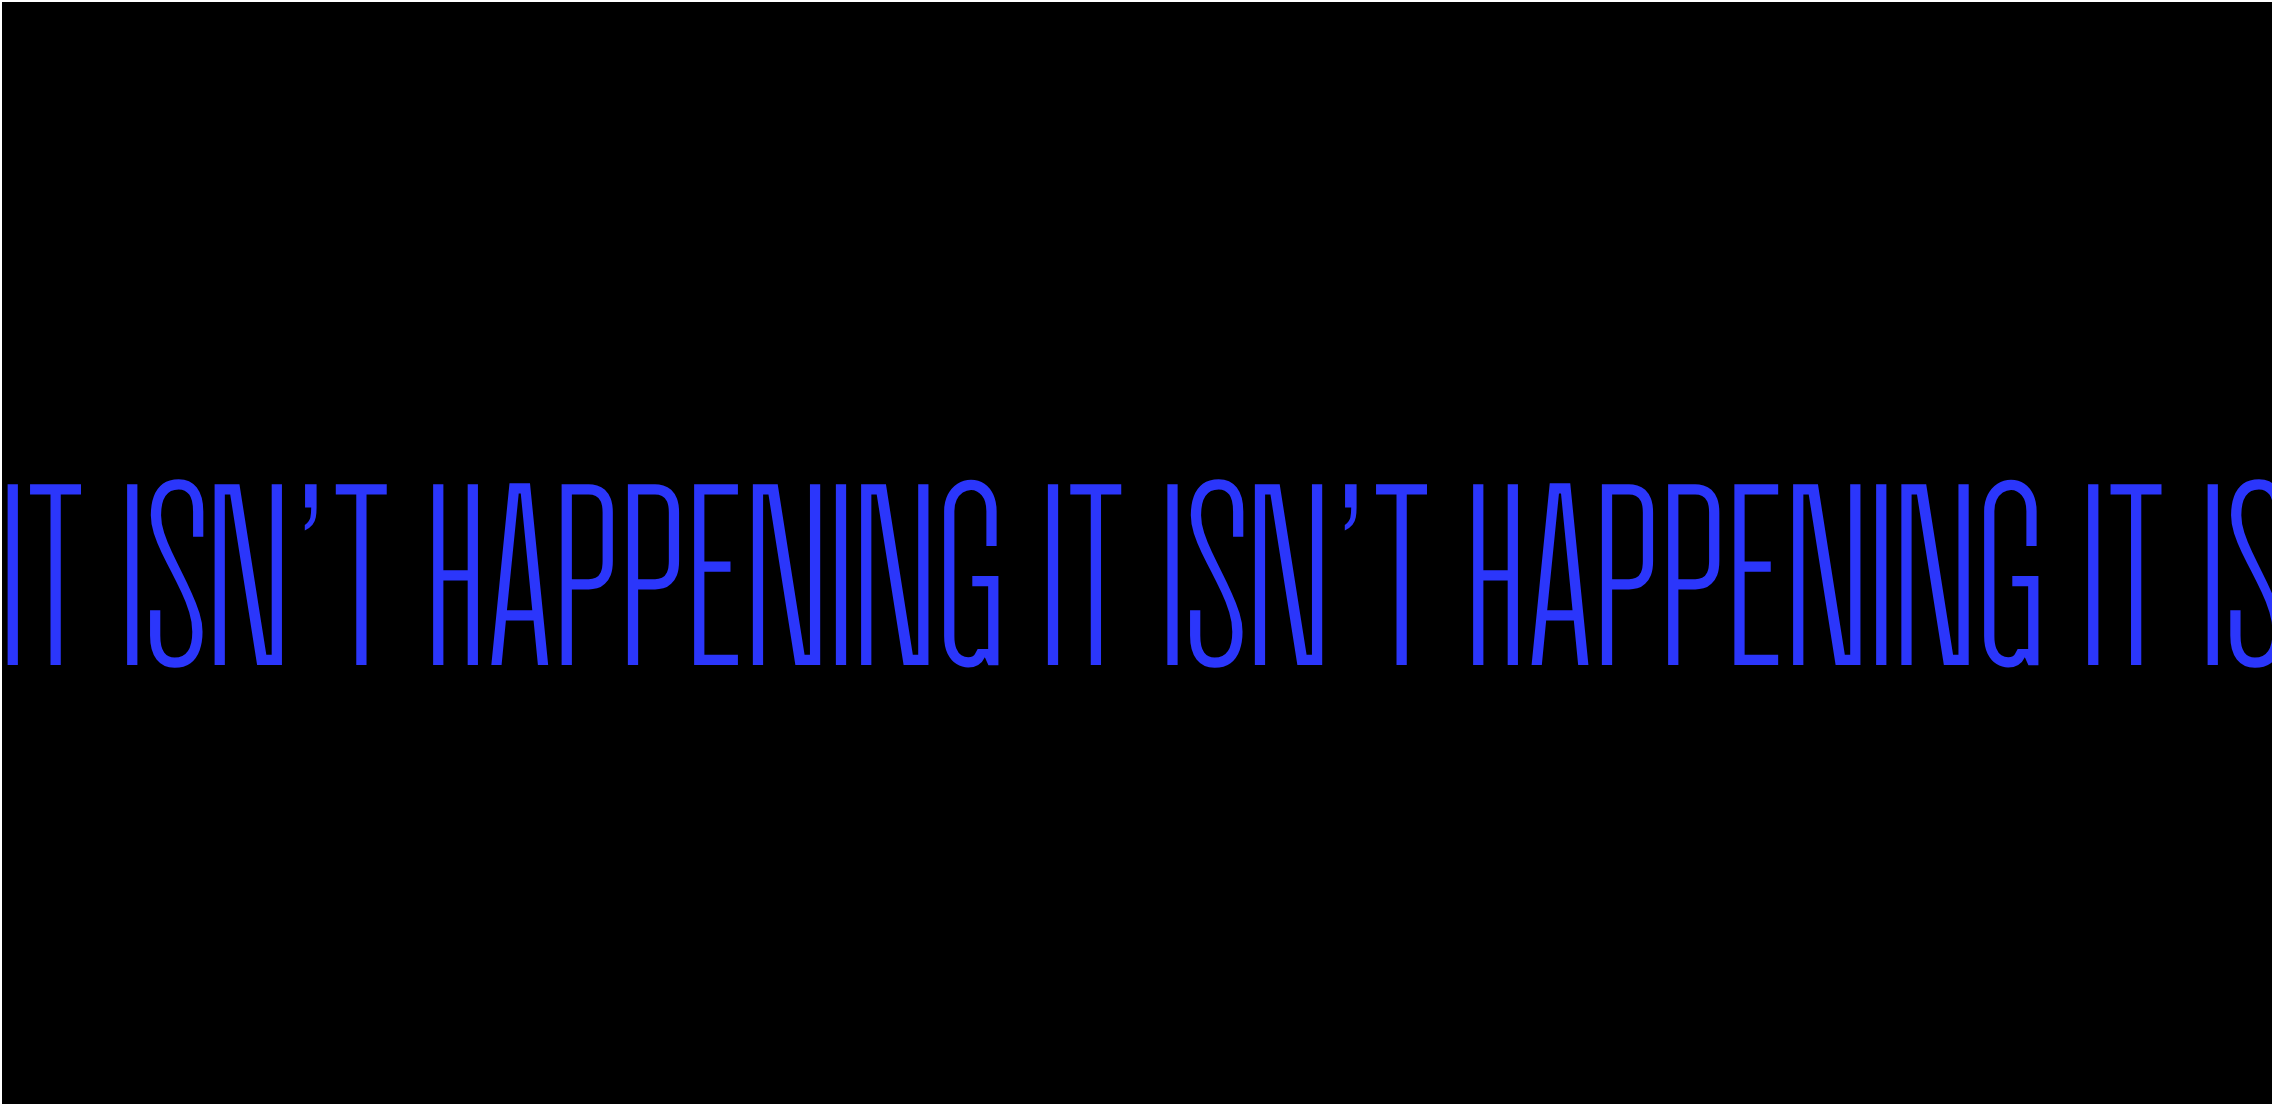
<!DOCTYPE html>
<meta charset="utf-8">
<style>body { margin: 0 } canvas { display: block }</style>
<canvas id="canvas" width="2274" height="1105"></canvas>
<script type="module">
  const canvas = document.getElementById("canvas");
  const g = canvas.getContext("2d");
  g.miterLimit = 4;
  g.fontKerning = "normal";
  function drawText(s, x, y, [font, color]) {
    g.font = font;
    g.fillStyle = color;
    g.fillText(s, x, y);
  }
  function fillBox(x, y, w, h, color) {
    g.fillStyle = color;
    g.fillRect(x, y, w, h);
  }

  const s1 = ["256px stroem", "#2B36FB"];

  fillBox(0, 0, 2274, 1105, "#000000");
  g.strokeStyle = "#FFFFFF";
  g.lineWidth = 2;
  g.strokeRect(1, 1, 2272, 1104);
  g.save();
  g.beginPath();
  g.rect(2, 362, 2270, 384);
  g.clip();
  g.letterSpacing = "4.8px";
  drawText("IT ISN’T HAPPENING IT ISN’T HAPPENING IT IS", 2, 665, s1);
  g.restore();
</script>
